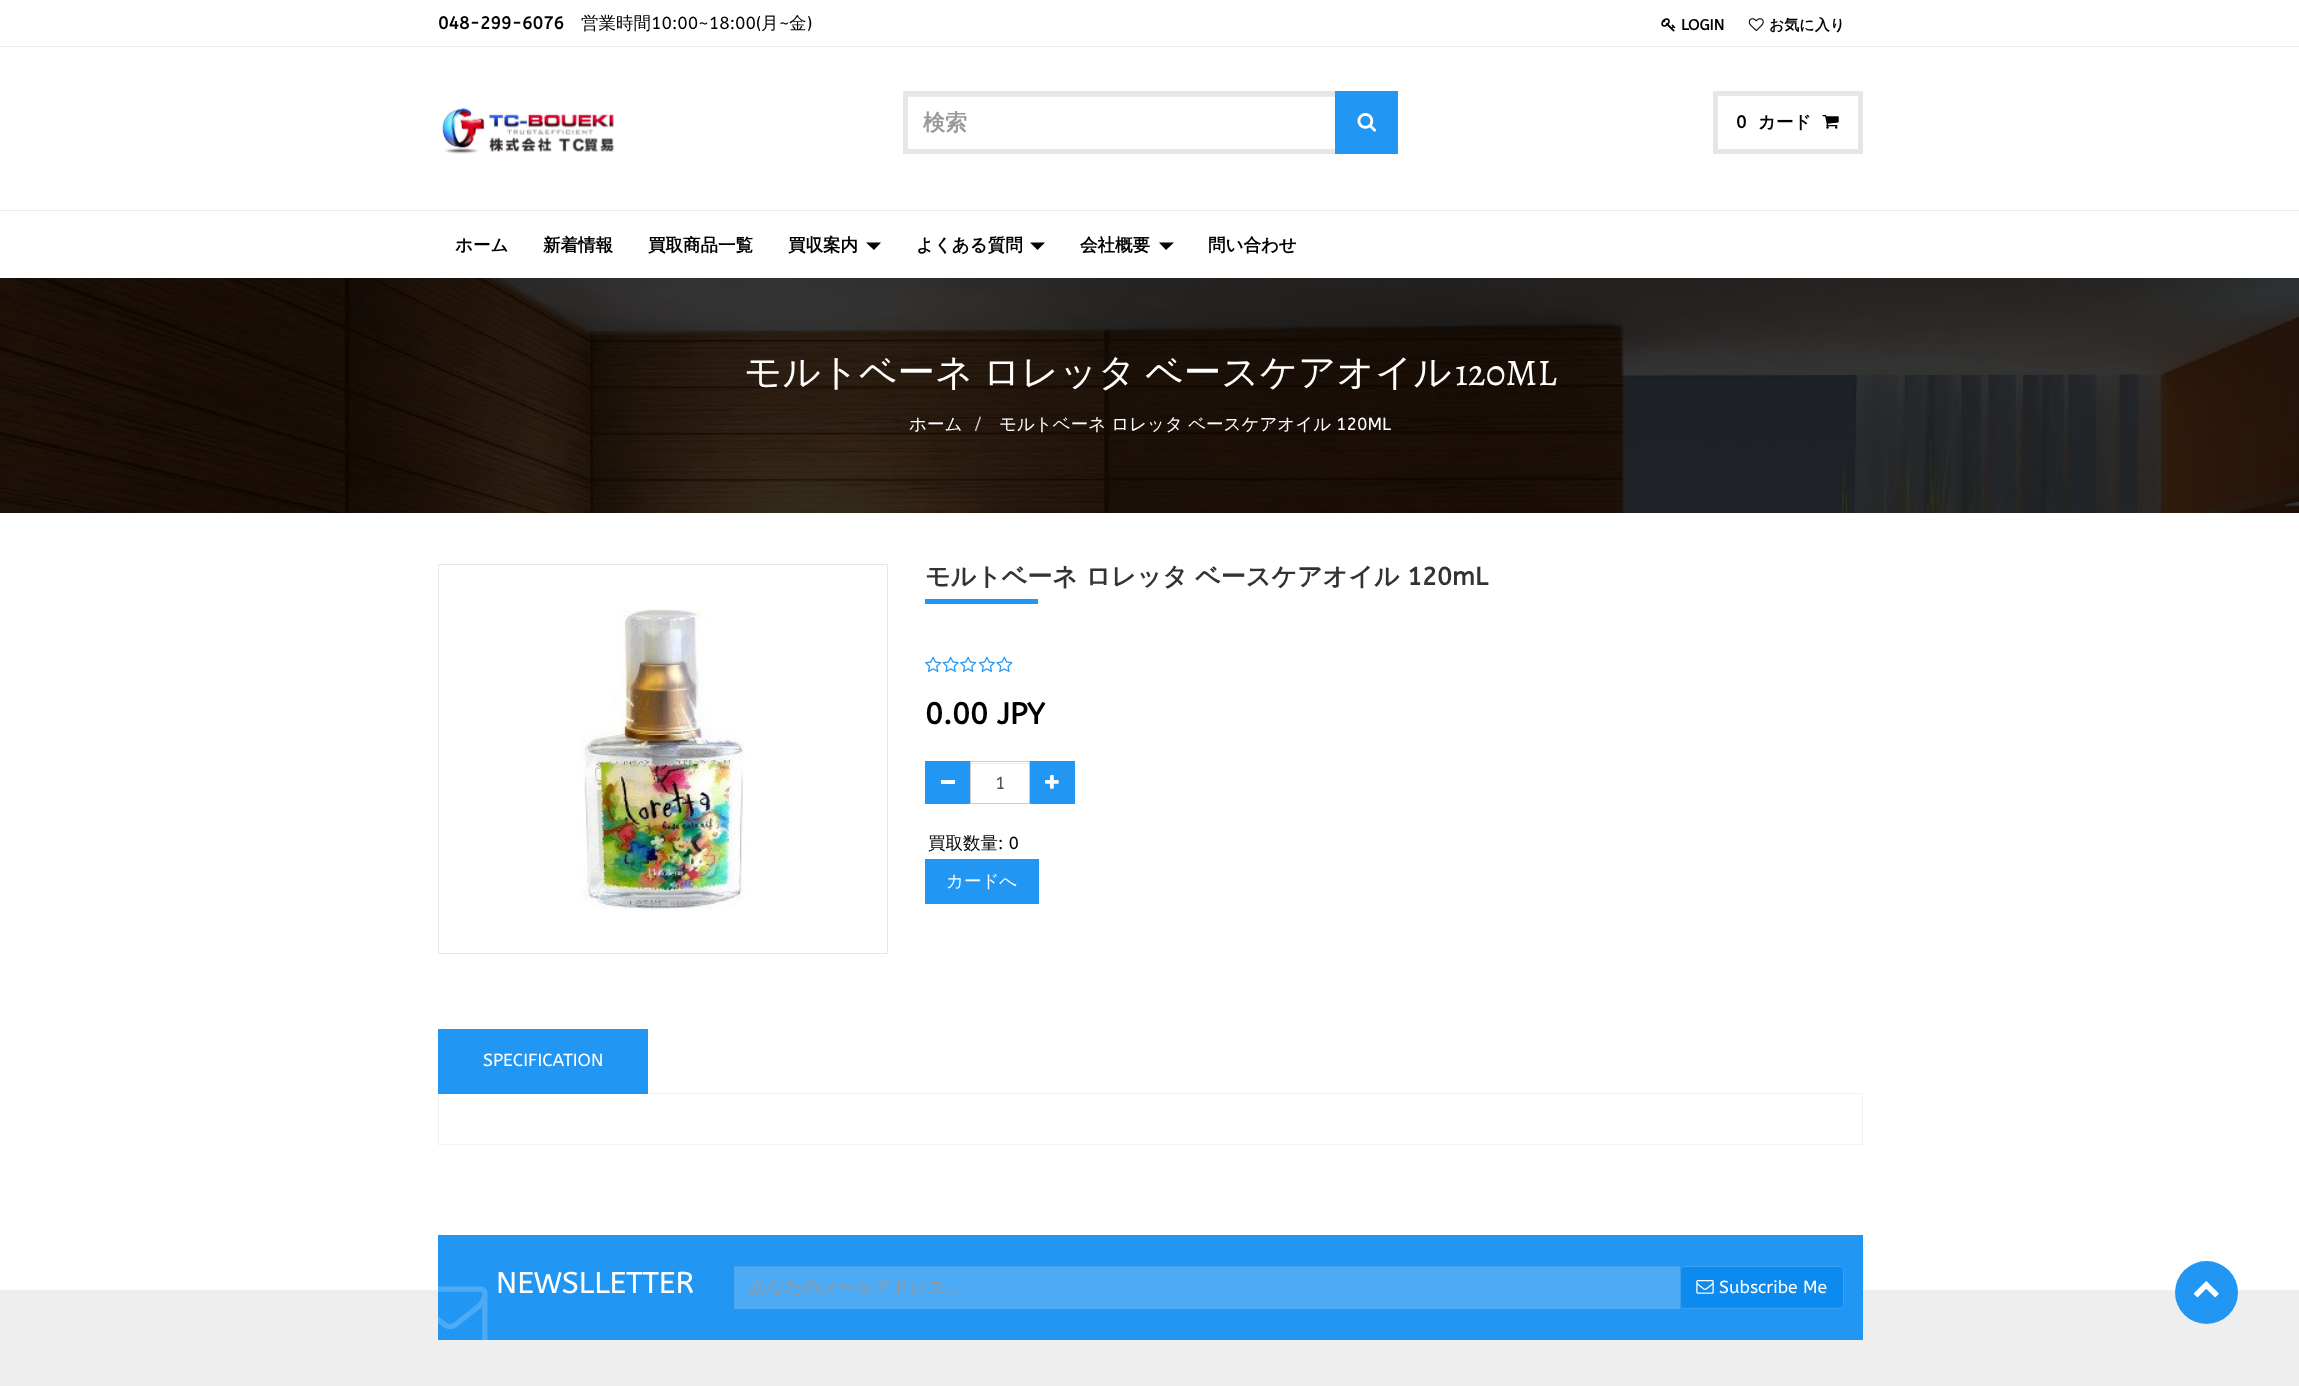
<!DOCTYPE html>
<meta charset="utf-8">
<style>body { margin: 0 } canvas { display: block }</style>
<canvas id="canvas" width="2299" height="1386"></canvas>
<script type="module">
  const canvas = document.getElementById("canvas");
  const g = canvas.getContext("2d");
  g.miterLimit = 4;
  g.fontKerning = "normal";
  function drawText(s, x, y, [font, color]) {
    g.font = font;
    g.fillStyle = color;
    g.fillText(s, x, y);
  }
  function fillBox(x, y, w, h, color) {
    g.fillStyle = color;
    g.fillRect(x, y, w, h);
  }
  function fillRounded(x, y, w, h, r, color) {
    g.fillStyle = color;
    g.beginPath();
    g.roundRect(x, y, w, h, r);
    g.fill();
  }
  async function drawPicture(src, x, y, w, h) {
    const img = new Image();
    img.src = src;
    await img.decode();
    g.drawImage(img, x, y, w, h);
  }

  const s1 = ["bold 17.5px ABeeZee", "#000000"];
  const s2 = ["500 17.5px WenQuanYi Zen Hei", "#000000"];
  const s3 = ["17.5px ABeeZee", "#000000"];
  const s4 = ["bold 15px ABeeZee", "#000000"];
  const s5 = ["bold 15px WenQuanYi Zen Hei", "#000000"];
  const s6 = ["bold 22px WenQuanYi Zen Hei", "#999999"];
  const s7 = ["bold 17.5px WenQuanYi Zen Hei", "#000000"];
  const s8 = ["500 37.5px WenQuanYi Zen Hei", "#FFFFFF"];
  const s9 = ["37.5px Alegreya", "#FFFFFF"];
  const s10 = ["500 17.5px WenQuanYi Zen Hei", "#FFFFFF"];
  const s11 = ["17.5px ABeeZee", "#CCCCCC"];
  const s12 = ["17.5px ABeeZee", "#FFFFFF"];
  const s13 = ["bold 25px WenQuanYi Zen Hei", "#333331"];
  const s14 = ["bold 25px ABeeZee", "#333331"];
  const s15 = ["bold 30px ABeeZee", "#000000"];
  const s16 = ["17.5px ABeeZee", "#555555"];
  const s17 = ["30px ABeeZee", "#FFFFFF"];
  const s18 = ["500 17.5px WenQuanYi Zen Hei", "#999999"];
  const s19 = ["17.5px ABeeZee", "#999999"];

  fillBox(0, 0, 2299, 1386, "#FFFFFF");
  fillBox(0, 46, 2299, 1, "#EEEEEE");
  drawText("048-299-6076", 438, 29, s1);
  drawText("営業時間", 581, 29, s2);
  drawText("10:00~18:00(", 651, 29, s3);
  drawText("月", 761, 29, s2);
  drawText("~", 779, 29, s3);
  drawText("金", 789, 29, s2);
  drawText(")", 807, 29, s3);
  await drawPicture("pic1.png", 1661, 18, 15, 14);
  drawText("LOGIN", 1681, 30, s4);
  await drawPicture("pic2.png", 1748, 18, 16, 13);
  drawText("お気に入り", 1769, 30, s5);
  await drawPicture("pic3.png", 442, 107, 172, 47);
  fillBox(908, 96, 427, 1, "#ECECEC");
  g.strokeStyle = "#E6E6E6";
  g.lineWidth = 5;
  g.strokeRect(905.5, 93.5, 490, 58);
  drawText("検索", 923, 130, s6);
  fillBox(1335, 91, 63, 63, "#2196F3");
  await drawPicture("pic4.png", 1357, 113, 20, 19);
  g.strokeRect(1715.5, 93.5, 145, 58);
  drawText("0", 1736, 128, s1);
  drawText("カード", 1758, 128, s7);
  await drawPicture("pic5.png", 1822, 115, 17, 14);
  fillBox(0, 210, 2299, 1, "#EBEBEB");
  drawText("ホーム", 455, 251, s7);
  drawText("新着情報", 543, 251, s7);
  drawText("買取商品一覧", 648, 251, s7);
  drawText("買収案内", 788, 251, s7);
  g.beginPath();
  g.moveTo(866, 242.5);
  g.lineTo(881, 242.5);
  g.lineTo(874, 250);
  g.closePath();
  g.fill();
  drawText("よくある質問", 916, 251, s7);
  g.beginPath();
  g.moveTo(1030, 242.5);
  g.lineTo(1045, 242.5);
  g.lineTo(1037.5, 250);
  g.closePath();
  g.fill();
  drawText("会社概要", 1080, 251, s7);
  g.beginPath();
  g.moveTo(1159, 242.5);
  g.lineTo(1174, 242.5);
  g.lineTo(1166, 250);
  g.closePath();
  g.fill();
  drawText("問い合わせ", 1208, 251, s7);
  await drawPicture("pic6.png", 0, 278, 2299, 235);
  g.wordSpacing = "-2px";
  drawText("モルトベーネ ロレッタ ベースケアオイル", 744, 385, s8);
  g.wordSpacing = "0px";
  drawText("120ML", 1455, 385, s9);
  drawText("ホーム", 909, 430, s10);
  drawText("/", 974, 430, s11);
  drawText("モルトベーネ ロレッタ ベースケアオイル", 999, 430, s10);
  drawText("120ML", 1336, 430, s12);
  g.lineWidth = 1;
  g.strokeRect(438.5, 564.5, 449, 389);
  await drawPicture("pic7.png", 578, 608, 168, 303);
  drawText("モルトベーネ ロレッタ ベースケアオイル", 925, 585, s13);
  drawText("120mL", 1407, 585, s14);
  fillBox(925, 599, 113, 5, "#2196F3");
  await drawPicture("pic8.png", 925, 656, 17, 16);
  await drawPicture("pic9.png", 942, 656, 17, 16);
  await drawPicture("pic8.png", 960, 656, 17, 16);
  await drawPicture("pic10.png", 978, 656, 17, 16);
  await drawPicture("pic11.png", 996, 656, 17, 16);
  drawText("0.00 JPY", 925, 724, s15);
  fillBox(925, 761, 45, 43, "#2196F3");
  fillBox(941, 780, 14, 4, "#FFFFFF");
  fillBox(971, 763, 58, 1, "#ECECEC");
  g.strokeStyle = "#CCCCCC";
  g.strokeRect(970.5, 761.5, 59, 42);
  drawText("1", 995, 789, s16);
  fillBox(1030, 761, 45, 43, "#2196F3");
  await drawPicture("pic12.png", 1045, 775, 14, 14);
  drawText("買取数量", 928, 849, s2);
  drawText(": 0", 998, 849, s3);
  fillBox(925, 859, 114, 45, "#2196F3");
  drawText("カードへ", 946, 887, s10);
  g.strokeStyle = "#F2F2F2";
  g.strokeRect(438.5, 1093.5, 1424, 51);
  fillBox(438, 1029, 210, 65, "#2196F3");
  drawText("SPECIFICATION", 483, 1066, s12);
  fillBox(0, 1290, 2299, 96, "#EEEEEE");
  fillBox(438, 1235, 1425, 105, "#2196F3");
  await drawPicture("pic13.png", 438, 1286, 50, 54);
  drawText("NEWSLLETTER", 496, 1293, s17);
  fillBox(734, 1267, 946, 42, "#4DABF5");
  fillBox(734, 1266, 946, 1, "#479EE3");
  drawText("あなたのメールアドレス", 749, 1293, s18);
  drawText("...", 945, 1293, s19);
  fillRounded(1680, 1266, 164, 43, 4, "#0D8AEE");
  g.beginPath();
  g.roundRect(1680.5, 1266.5, 163, 42, 3.5);
  g.strokeStyle = "rgba(255, 255, 255, 0.2)";
  g.stroke();
  await drawPicture("pic14.png", 1696, 1280, 18, 14);
  drawText("Subscribe Me", 1719, 1293, s12);
  g.fillStyle = "#2196F3";
  g.beginPath();
  g.arc(2206.5, 1292.5, 31.5, 0, Math.PI * 2);
  g.fill();
  await drawPicture("pic15.png", 2193, 1281, 26, 17);
</script>
